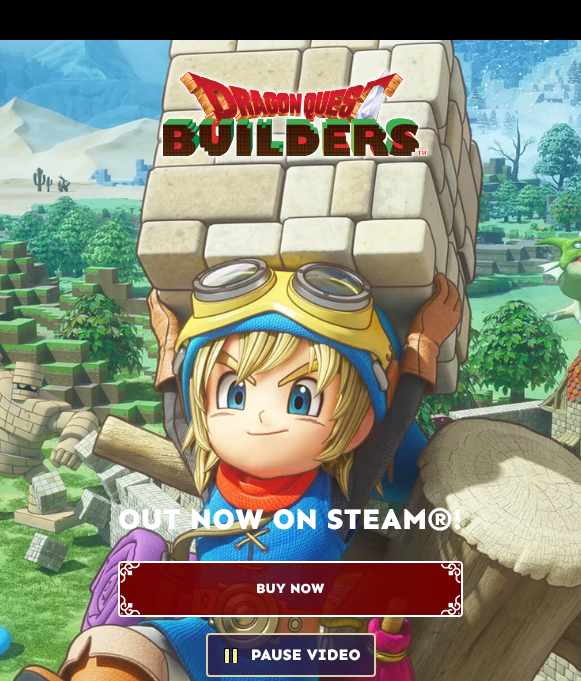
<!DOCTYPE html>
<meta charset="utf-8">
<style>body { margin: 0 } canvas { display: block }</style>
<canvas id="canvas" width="581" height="681"></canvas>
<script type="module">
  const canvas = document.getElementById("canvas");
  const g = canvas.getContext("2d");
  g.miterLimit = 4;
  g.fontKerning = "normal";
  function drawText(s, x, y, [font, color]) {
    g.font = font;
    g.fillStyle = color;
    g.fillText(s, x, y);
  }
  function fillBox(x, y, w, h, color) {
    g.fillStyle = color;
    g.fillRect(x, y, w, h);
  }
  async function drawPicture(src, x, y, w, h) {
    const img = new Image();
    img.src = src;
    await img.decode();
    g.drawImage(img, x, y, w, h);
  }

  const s1 = ["800 30px Sen", "#FFFFFF"];
  const s2 = ["800 14px Sen", "#FFFFFF"];
  const s3 = ["800 16px Sen", "#FFFFFF"];

  fillBox(0, 0, 581, 681, "#000000");
  await drawPicture("pic1.png", 0, 40, 581, 641);
  await drawPicture("pic2.png", 156, 68, 271, 95);
  drawText("OUT NOW ON STEAM®!", 118, 529, s1);
  g.beginPath();
  g.roundRect(119, 562, 343, 54, 3);
  g.strokeStyle = "#FFFFFF";
  g.lineWidth = 2;
  g.stroke();
  await drawPicture("pic3.png", 120, 563, 20, 20);
  await drawPicture("pic4.png", 441, 563, 20, 20);
  drawText("BUY NOW", 256, 593, s2);
  await drawPicture("pic5.png", 120, 595, 20, 20);
  await drawPicture("pic6.png", 441, 595, 20, 20);
  g.fillStyle = "rgba(42, 31, 68, 0.8)";
  g.beginPath();
  g.roundRect(207, 634, 168, 42, 3);
  g.fill();
  g.strokeStyle = "#D8CFA3";
  g.stroke();
  await drawPicture("pic7.png", 224, 648, 14, 15);
  drawText("PAUSE VIDEO", 251, 660, s3);
</script>
